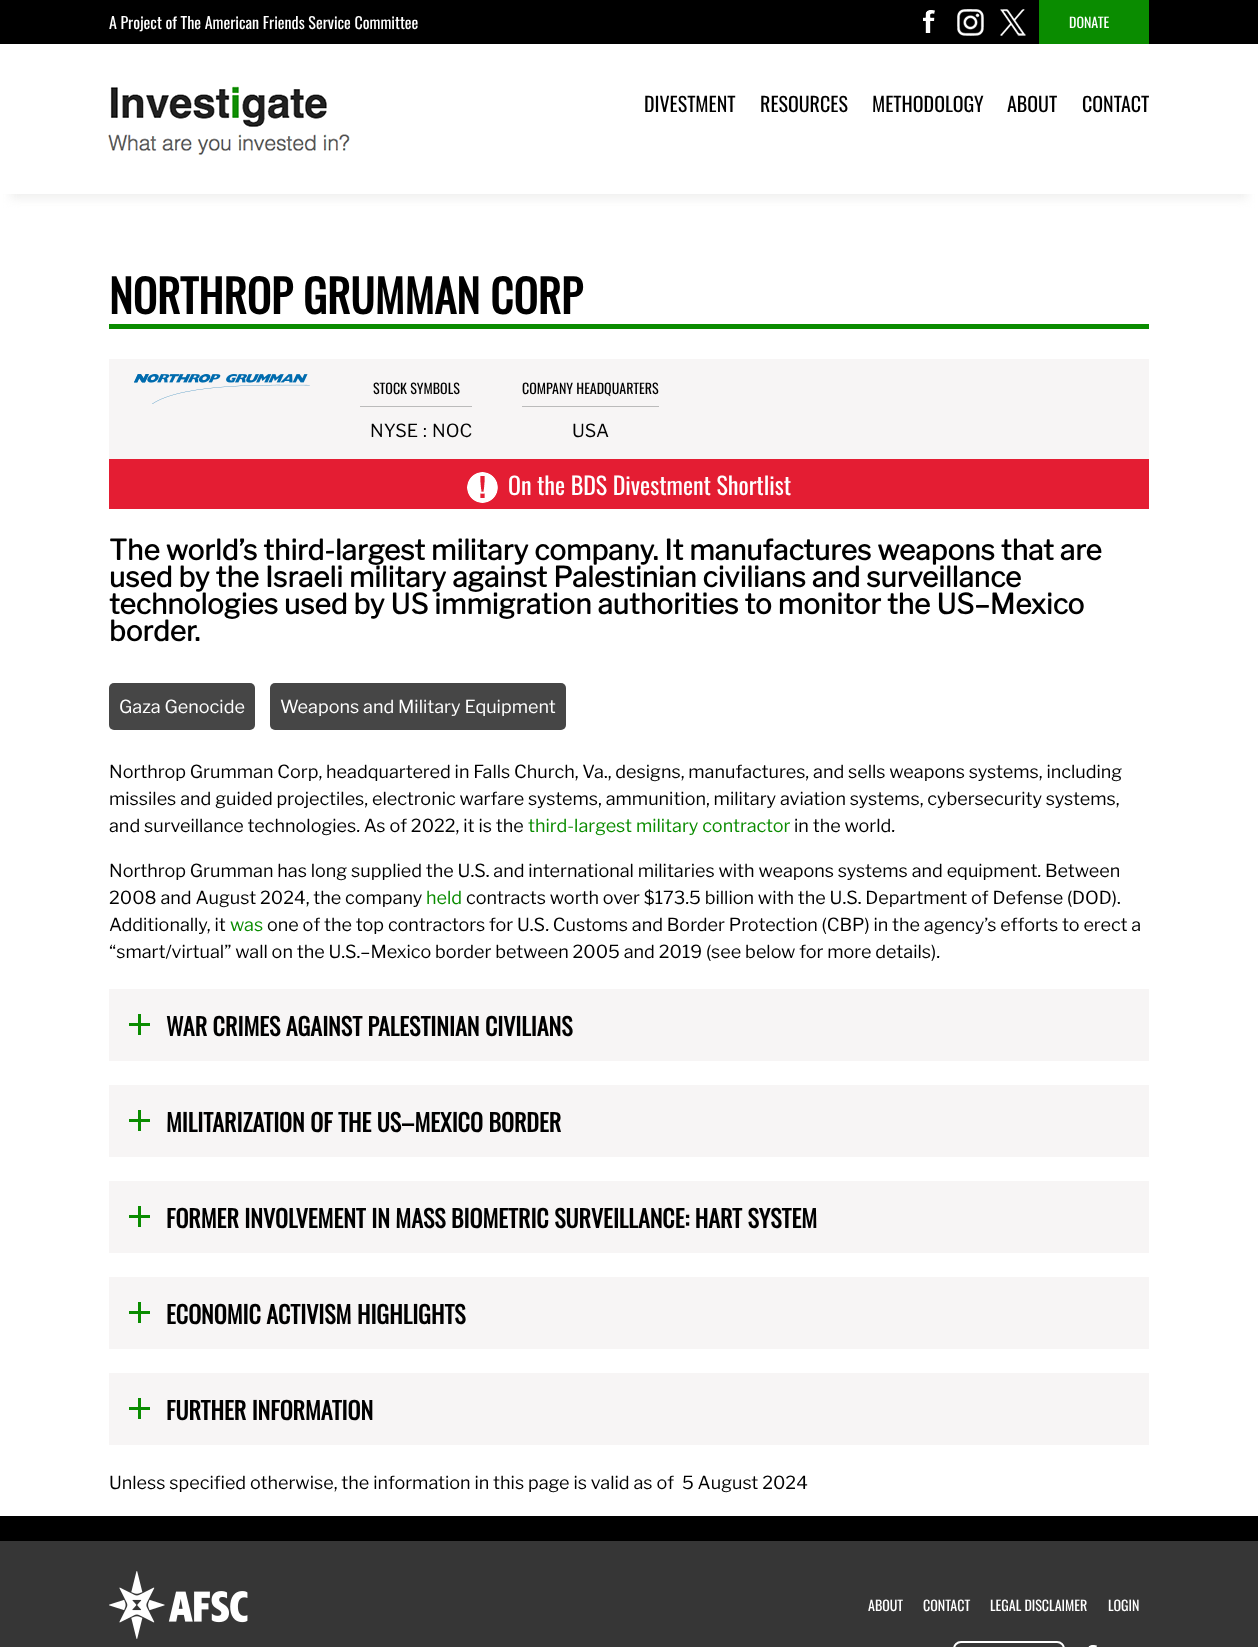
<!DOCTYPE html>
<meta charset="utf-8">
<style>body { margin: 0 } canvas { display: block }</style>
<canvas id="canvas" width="1258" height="1647"></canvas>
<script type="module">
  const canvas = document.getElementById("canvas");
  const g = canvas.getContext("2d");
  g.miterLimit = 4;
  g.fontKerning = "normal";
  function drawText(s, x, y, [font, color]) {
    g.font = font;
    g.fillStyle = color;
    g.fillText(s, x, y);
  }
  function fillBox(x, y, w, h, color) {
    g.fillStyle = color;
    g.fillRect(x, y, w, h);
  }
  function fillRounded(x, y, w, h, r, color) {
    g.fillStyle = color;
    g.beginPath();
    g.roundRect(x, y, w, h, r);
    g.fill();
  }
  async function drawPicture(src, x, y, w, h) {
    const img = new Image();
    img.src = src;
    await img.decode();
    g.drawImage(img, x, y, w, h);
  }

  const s1 = ["16px Oswald", "#FFFFFF"];
  const s2 = ["14px Oswald", "#FFFFFF"];
  const s3 = ["20px Oswald", "#000000"];
  const s4 = ["bold 45px Oswald", "#000000"];
  const s5 = ["14px Oswald", "#000000"];
  const s6 = ["100 18px Libre Franklin", "#000000"];
  const s7 = ["24px Oswald", "#FFFFFF"];
  const s8 = ["bold 28px Libre Franklin", "#000000"];
  const s9 = ["100 18px Libre Franklin", "#FFFFFF"];
  const s10 = ["100 18px Libre Franklin", "#0A8C00"];
  const s11 = ["bold 24px Oswald", "#000000"];

  fillBox(0, 0, 1258, 1647, "#FFFFFF");
  fillBox(0, 0, 1258, 44, "#000000");
  drawText("A Project of The American Friends Service Committee", 109, 29, s1);
  await drawPicture("pic1.png", 923, 10, 12, 23);
  await drawPicture("pic2.png", 957, 9, 27, 27);
  await drawPicture("pic3.png", 1000, 9, 26, 27);
  fillBox(1039, 0, 110, 44, "#0A8C00");
  drawText("DONATE", 1069, 28, s2);
  g.save();
  g.beginPath();
  g.rect(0, 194, 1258, 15);
  g.clip();
  g.fillStyle = "#F0F0EF";
  g.filter = "blur(5px)";
  g.beginPath();
  g.rect(10, 69, 1238, 130);
  g.fill();
  g.filter = "none";
  g.restore();
  await drawPicture("pic4.png", 108, 86, 242, 69);
  drawText("DIVESTMENT", 644, 112, s3);
  drawText("RESOURCES", 760, 112, s3);
  drawText("METHODOLOGY", 872, 112, s3);
  drawText("ABOUT", 1007, 112, s3);
  drawText("CONTACT", 1082, 112, s3);
  fillBox(109, 324, 1040, 5, "#0A8C00");
  drawText("NORTHROP GRUMMAN CORP", 109, 314, s4);
  fillBox(109, 359, 1040, 100, "#F7F5F5");
  await drawPicture("pic5.png", 134, 374, 176, 30);
  fillBox(360, 406, 112, 1, "#BBBBBB");
  drawText("STOCK SYMBOLS", 373, 394, s5);
  drawText("NYSE", 370, 437, s6);
  drawText(":", 423, 437, s6);
  drawText("NOC", 432, 437, s6);
  fillBox(522, 406, 137, 1, "#BBBBBB");
  drawText("COMPANY HEADQUARTERS", 522, 394, s5);
  drawText("USA", 572, 437, s6);
  fillBox(109, 459, 1040, 50, "#E41D33");
  await drawPicture("pic6.png", 467, 472, 31, 31);
  drawText("On the BDS Divestment Shortlist", 508, 495, s7);
  drawText("The world’s third-largest military company. It manufactures weapons that are", 109, 560, s8);
  drawText("used by the Israeli military against Palestinian civilians and surveillance", 109, 587, s8);
  drawText("technologies used by US immigration authorities to monitor the US–Mexico", 109, 614, s8);
  drawText("border.", 109, 641, s8);
  fillRounded(109, 683, 146, 47, 5, "#464646");
  drawText("Gaza Genocide", 119, 713, s9);
  fillRounded(270, 683, 296, 47, 5, "#464646");
  drawText("Weapons and Military Equipment", 280, 713, s9);
  drawText("Northrop Grumman Corp, headquartered in Falls Church, Va., designs, manufactures, and sells weapons systems, including", 109, 778, s6);
  drawText("missiles and guided projectiles, electronic warfare systems, ammunition, military aviation systems, cybersecurity systems,", 109, 805, s6);
  drawText("and surveillance technologies. As of 2022, it is the", 109, 832, s6);
  drawText("third-largest military contractor", 528, 832, s10);
  drawText("in the world.", 794, 832, s6);
  drawText("Northrop Grumman has long supplied the U.S. and international militaries with weapons systems and equipment. Between", 109, 877, s6);
  drawText("2008 and August 2024, the company", 109, 904, s6);
  drawText("held", 426, 904, s10);
  drawText("contracts worth over $173.5 billion with the U.S. Department of Defense (DOD).", 466, 904, s6);
  drawText("Additionally, it", 109, 931, s6);
  drawText("was", 230, 931, s10);
  drawText("one of the top contractors for U.S. Customs and Border Protection (CBP) in the agency’s efforts to erect a", 267, 931, s6);
  drawText("“smart/virtual” wall on the U.S.–Mexico border between 2005 and 2019 (see below for more details).", 109, 958, s6);
  fillBox(109, 989, 1040, 72, "#F7F5F5");
  await drawPicture("pic7.png", 129, 1014, 21, 21);
  drawText("WAR CRIMES AGAINST PALESTINIAN CIVILIANS", 166, 1036, s11);
  fillBox(109, 1085, 1040, 72, "#F7F5F5");
  await drawPicture("pic7.png", 129, 1110, 21, 21);
  drawText("MILITARIZATION OF THE US–MEXICO BORDER", 166, 1132, s11);
  fillBox(109, 1181, 1040, 72, "#F7F5F5");
  await drawPicture("pic7.png", 129, 1206, 21, 21);
  drawText("FORMER INVOLVEMENT IN MASS BIOMETRIC SURVEILLANCE: HART SYSTEM", 166, 1228, s11);
  fillBox(109, 1277, 1040, 72, "#F7F5F5");
  await drawPicture("pic7.png", 129, 1302, 21, 21);
  drawText("ECONOMIC ACTIVISM HIGHLIGHTS", 166, 1324, s11);
  fillBox(109, 1373, 1040, 72, "#F7F5F5");
  await drawPicture("pic7.png", 129, 1398, 21, 21);
  drawText("FURTHER INFORMATION", 166, 1420, s11);
  drawText("Unless specified otherwise, the information in this page is valid as of", 109, 1489, s6);
  drawText("5 August 2024", 682, 1489, s6);
  fillBox(0, 1541, 1258, 106, "#363636");
  fillBox(0, 1516, 1258, 25, "#000000");
  await drawPicture("pic8.png", 109, 1571, 139, 68);
  drawText("ABOUT", 868, 1611, s2);
  drawText("CONTACT", 923, 1611, s2);
  drawText("LEGAL DISCLAIMER", 990, 1611, s2);
  drawText("LOGIN", 1108, 1611, s2);
  g.beginPath();
  g.roundRect(954, 1642, 110, 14, 7);
  g.strokeStyle = "#FFFFFF";
  g.lineWidth = 2;
  g.stroke();
  await drawPicture("pic9.png", 1088, 1645, 9, 2);
</script>
